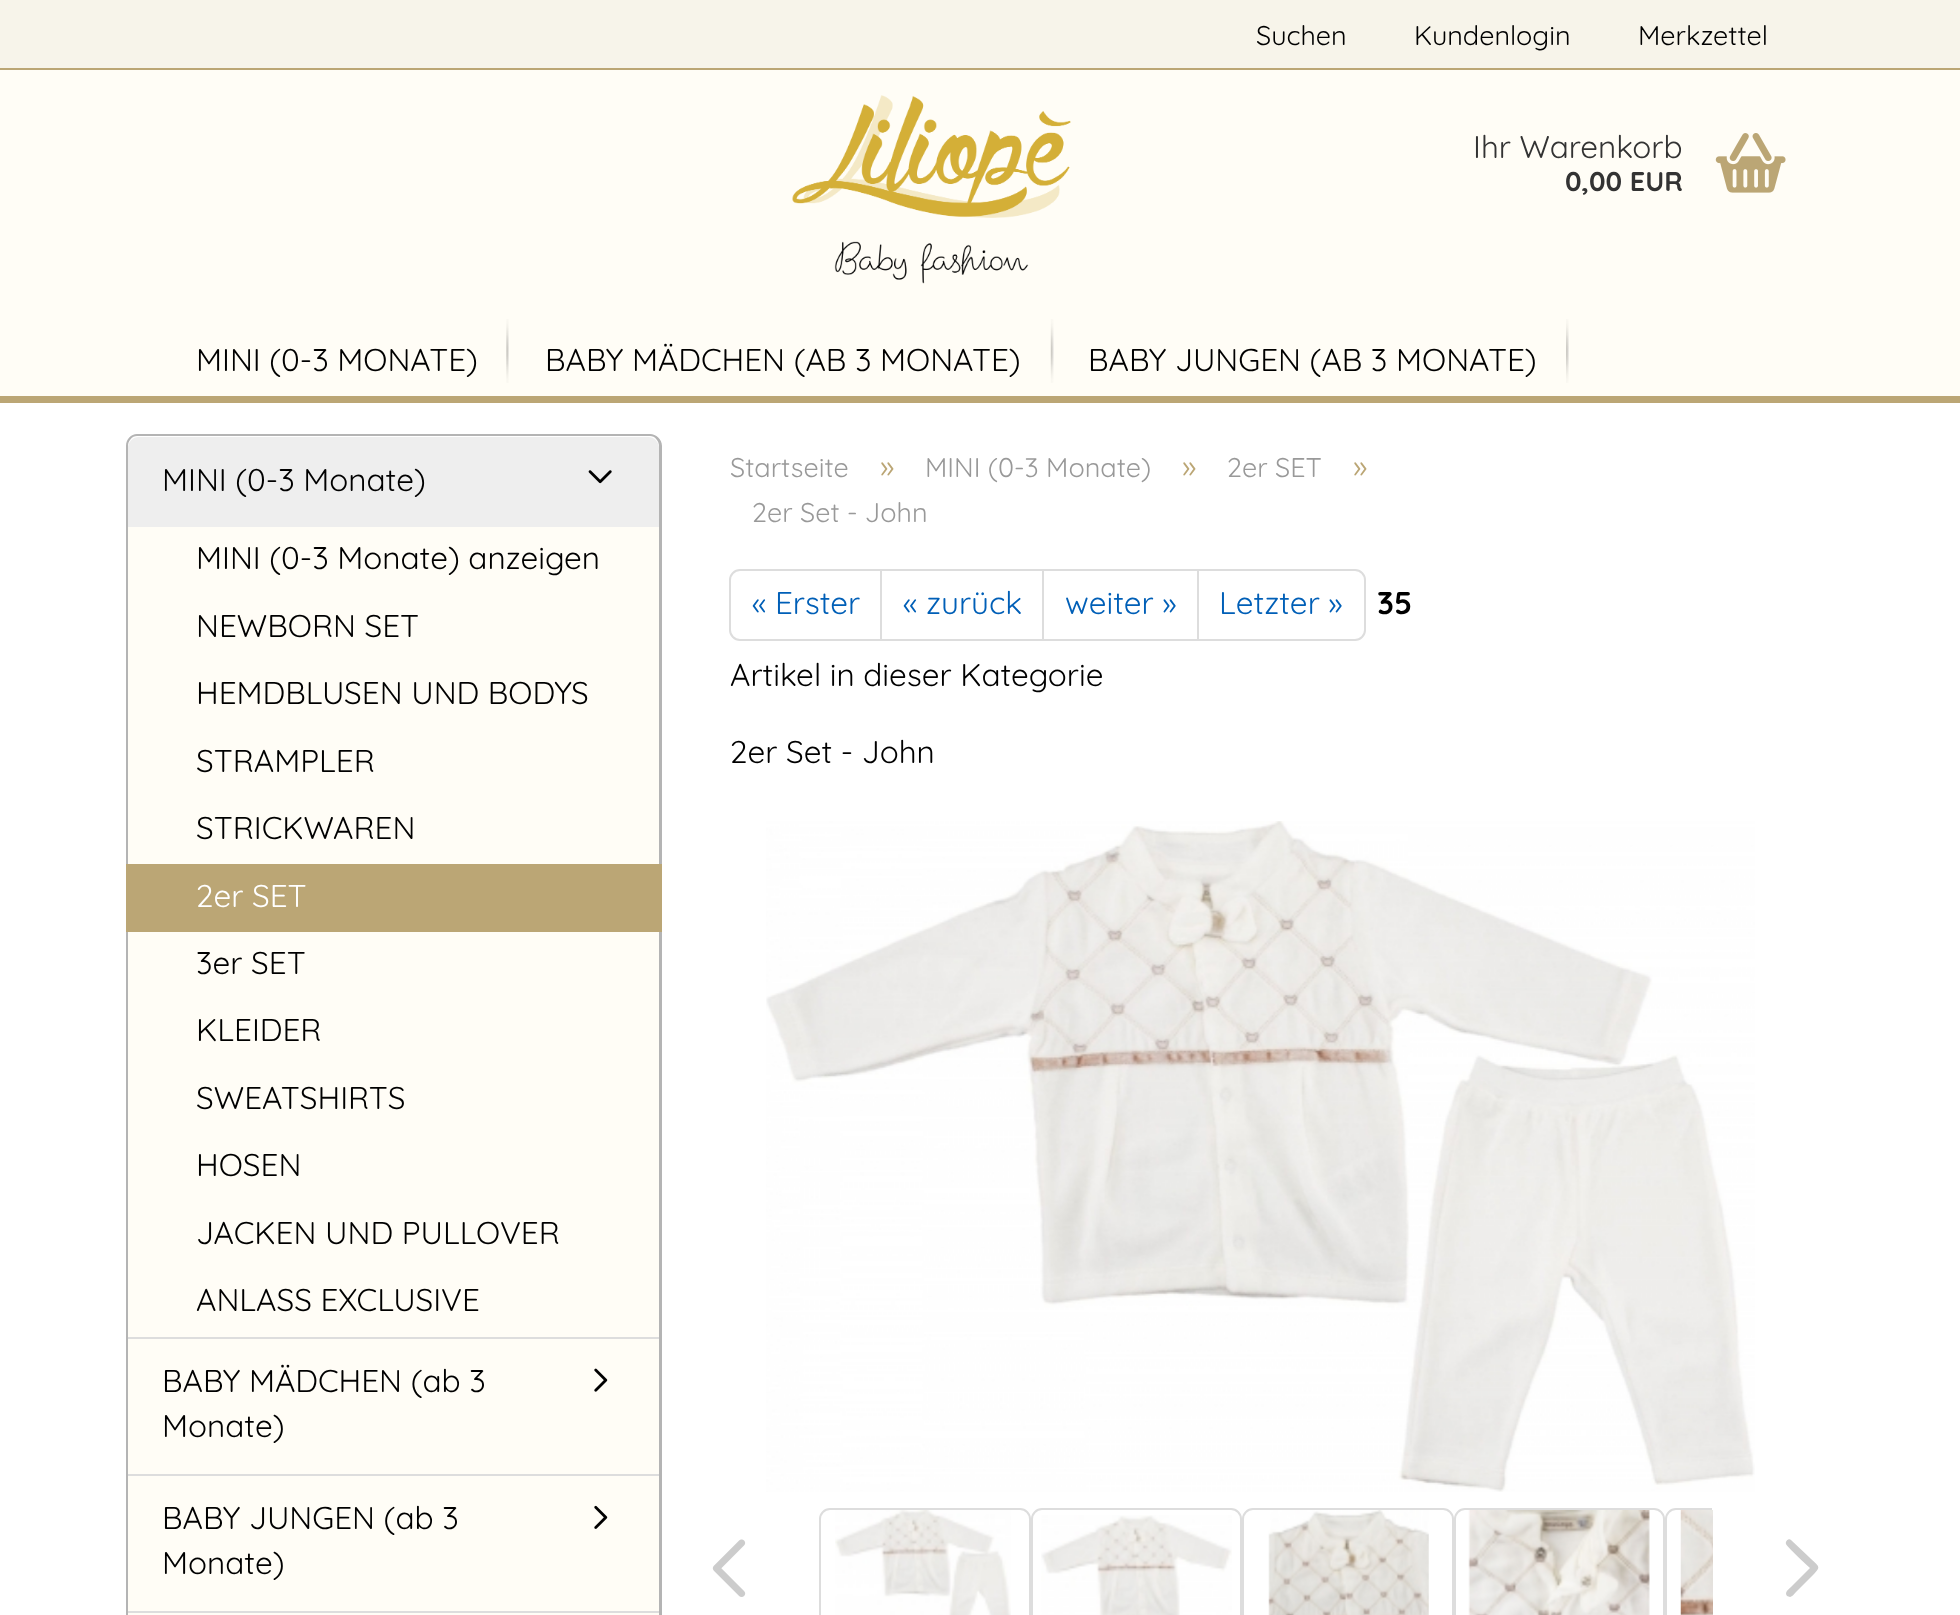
<!DOCTYPE html>
<meta charset="utf-8">
<style>body { margin: 0 } canvas { display: block }</style>
<canvas id="canvas" width="1960" height="1615"></canvas>
<script type="module">
  const canvas = document.getElementById("canvas");
  const g = canvas.getContext("2d");
  g.miterLimit = 4;
  g.fontKerning = "normal";
  function drawText(s, x, y, [font, color]) {
    g.font = font;
    g.fillStyle = color;
    g.fillText(s, x, y);
  }
  function fillBox(x, y, w, h, color) {
    g.fillStyle = color;
    g.fillRect(x, y, w, h);
  }
  async function drawPicture(src, x, y, w, h) {
    const img = new Image();
    img.src = src;
    await img.decode();
    g.drawImage(img, x, y, w, h);
  }

  const s1 = ["300 27px Quicksand", "#000000"];
  const s2 = ["300 31.5px Quicksand", "#333333"];
  const s3 = ["300 27px 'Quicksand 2'", "#333333"];
  const s4 = ["300 31.5px Quicksand", "#000000"];
  const s5 = ["300 31.5px Quicksand", "#FFFFFF"];
  const s6 = ["300 27px Quicksand", "#999999"];
  const s7 = ["300 31.5px Quicksand", "#BBA675"];
  const s8 = ["300 31.5px Quicksand", "#005FB7"];
  const s9 = ["300 31.5px 'Quicksand 2'", "#000000"];

  fillBox(0, 0, 1960, 1615, "#FFFFFF");
  fillBox(0, 70, 1960, 326, "#FFFDF6");
  fillBox(0, 0, 1960, 68, "#F7F4EA");
  fillBox(0, 68, 1960, 2, "#BBA675");
  drawText("Suchen", 1256, 45, s1);
  drawText("Kundenlogin", 1414, 45, s1);
  drawText("Merkzettel", 1638, 45, s1);
  await drawPicture("pic1.png", 792, 95, 279, 189);
  drawText("Ihr Warenkorb", 1473, 158, s2);
  drawText("0,00 EUR", 1565, 191, s3);
  await drawPicture("pic2.png", 1715, 133, 71, 60);
  fillBox(0, 396, 1960, 7, "#BBA675");
  await drawPicture("pic3.png", 506, 319, 3, 64);
  drawText("MINI (0-3 MONATE)", 196, 371, s4);
  await drawPicture("pic4.png", 1050, 319, 4, 64);
  drawText("BABY MÄDCHEN (AB 3 MONATE)", 545, 371, s4);
  await drawPicture("pic5.png", 1566, 319, 3, 64);
  drawText("BABY JUNGEN (AB 3 MONATE)", 1088, 371, s4);
  g.fillStyle = "#B4B4B4";
  g.beginPath();
  g.moveTo(137, 434);
  g.lineTo(650, 434);
  g.bezierCurveTo(656, 434, 662, 439, 662, 446);
  g.lineTo(662, 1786);
  g.bezierCurveTo(662, 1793, 656, 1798, 650, 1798);
  g.lineTo(137, 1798);
  g.bezierCurveTo(131, 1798, 126, 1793, 126, 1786);
  g.lineTo(126, 446);
  g.bezierCurveTo(126, 439, 131, 434, 137, 434);
  g.closePath();
  g.moveTo(137, 436);
  g.lineTo(650, 436);
  g.bezierCurveTo(655, 436, 659, 441, 659, 446);
  g.lineTo(659, 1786);
  g.bezierCurveTo(659, 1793, 655, 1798, 650, 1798);
  g.lineTo(137, 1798);
  g.bezierCurveTo(132, 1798, 128, 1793, 128, 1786);
  g.lineTo(128, 446);
  g.bezierCurveTo(128, 441, 132, 436, 137, 436);
  g.closePath();
  g.fill("evenodd");
  fillBox(128, 1337, 531, 2, "#DDDDDD");
  g.fillStyle = "#EEEEEE";
  g.beginPath();
  g.roundRect(128, 437, 531, 90, [11, 11, 0, 0]);
  g.fill();
  drawText("MINI (0-3 Monate)", 162, 491, s4);
  await drawPicture("pic6.png", 588, 470, 24, 14);
  fillBox(128, 527, 531, 337, "#FFFDF6");
  drawText("MINI (0-3 Monate) anzeigen", 196, 569, s4);
  drawText("NEWBORN SET", 196, 637, s4);
  drawText("HEMDBLUSEN UND BODYS", 196, 704, s4);
  drawText("STRAMPLER", 196, 772, s4);
  drawText("STRICKWAREN", 196, 839, s4);
  fillBox(126, 864, 536, 68, "#BBA675");
  drawText("2er SET", 196, 907, s5);
  fillBox(128, 932, 531, 405, "#FFFDF6");
  drawText("3er SET", 196, 974, s4);
  drawText("KLEIDER", 196, 1041, s4);
  drawText("SWEATSHIRTS", 196, 1109, s4);
  drawText("HOSEN", 196, 1176, s4);
  drawText("JACKEN UND PULLOVER", 196, 1244, s4);
  drawText("ANLASS EXCLUSIVE", 196, 1311, s4);
  fillBox(128, 1474, 531, 2, "#DDDDDD");
  fillBox(128, 1339, 531, 135, "#FFFDF6");
  drawText("BABY MÄDCHEN (ab 3", 162, 1392, s4);
  await drawPicture("pic7.png", 594, 1368, 14, 24);
  drawText("Monate)", 162, 1437, s4);
  fillBox(128, 1611, 531, 2, "#DDDDDD");
  fillBox(128, 1476, 531, 135, "#FFFDF6");
  drawText("BABY JUNGEN (ab 3", 162, 1529, s4);
  await drawPicture("pic8.png", 594, 1505, 14, 24);
  drawText("Monate)", 162, 1574, s4);
  fillBox(128, 1613, 531, 2, "#FFFDF6");
  drawText("Startseite", 730, 477, s6);
  drawText("»", 880, 477, s7);
  drawText("MINI (0-3 Monate)", 925, 477, s6);
  drawText("»", 1182, 477, s7);
  drawText("2er SET", 1227, 477, s6);
  drawText("»", 1353, 477, s7);
  drawText("2er Set - John", 752, 522, s6);
  g.beginPath();
  g.roundRect(730, 570, 151, 70, [10, 0, 0, 10]);
  g.strokeStyle = "#DDDDDD";
  g.lineWidth = 2;
  g.stroke();
  drawText("« Erster", 752, 614, s8);
  g.strokeRect(881, 570, 162, 70);
  drawText("« zurück", 903, 614, s8);
  g.strokeRect(1043, 570, 155, 70);
  drawText("weiter »", 1065, 614, s8);
  g.fillStyle = "#FFFFFF";
  g.beginPath();
  g.roundRect(1198, 570, 167, 70, [0, 10, 10, 0]);
  g.fill();
  g.stroke();
  drawText("Letzter »", 1219, 614, s8);
  drawText("35", 1377, 614, s9);
  drawText("Artikel in dieser Kategorie", 730, 686, s4);
  drawText("2er Set - John", 730, 763, s4);
  await drawPicture("pic9.png", 766, 821, 989, 671);
  await drawPicture("pic10.png", 712, 1539, 34, 58);
  g.beginPath();
  g.roundRect(820, 1509, 210, 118, 10);
  g.stroke();
  await drawPicture("pic11.png", 835, 1510, 176, 105);
  g.beginPath();
  g.roundRect(1032, 1509, 209, 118, 10);
  g.stroke();
  await drawPicture("pic12.png", 1041, 1515, 191, 100);
  g.beginPath();
  g.roundRect(1243, 1509, 210, 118, 10);
  g.stroke();
  await drawPicture("pic13.png", 1268, 1510, 161, 105);
  g.beginPath();
  g.roundRect(1455, 1509, 209, 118, 10);
  g.stroke();
  await drawPicture("pic14.png", 1468, 1510, 182, 105);
  g.save();
  g.beginPath();
  g.rect(819, 1508, 893, 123);
  g.clip();
  g.beginPath();
  g.roundRect(1666, 1509, 210, 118, 10);
  g.stroke();
  g.restore();
  await drawPicture("pic15.png", 1680, 1510, 33, 105);
  g.fillStyle = "#CCCCCC";
  g.beginPath();
  g.moveTo(1790, 1597);
  g.lineTo(1787, 1596);
  g.bezierCurveTo(1784, 1592, 1789, 1589, 1791, 1587);
  g.lineTo(1810, 1568);
  g.bezierCurveTo(1807, 1565, 1787, 1547, 1786, 1544);
  g.bezierCurveTo(1785, 1541, 1789, 1538, 1791, 1540);
  g.lineTo(1809, 1557);
  g.bezierCurveTo(1819, 1567, 1822, 1566, 1813, 1575);
  g.lineTo(1796, 1592);
  g.bezierCurveTo(1795, 1593, 1792, 1597, 1790, 1597);
  g.closePath();
  g.fill();
</script>
